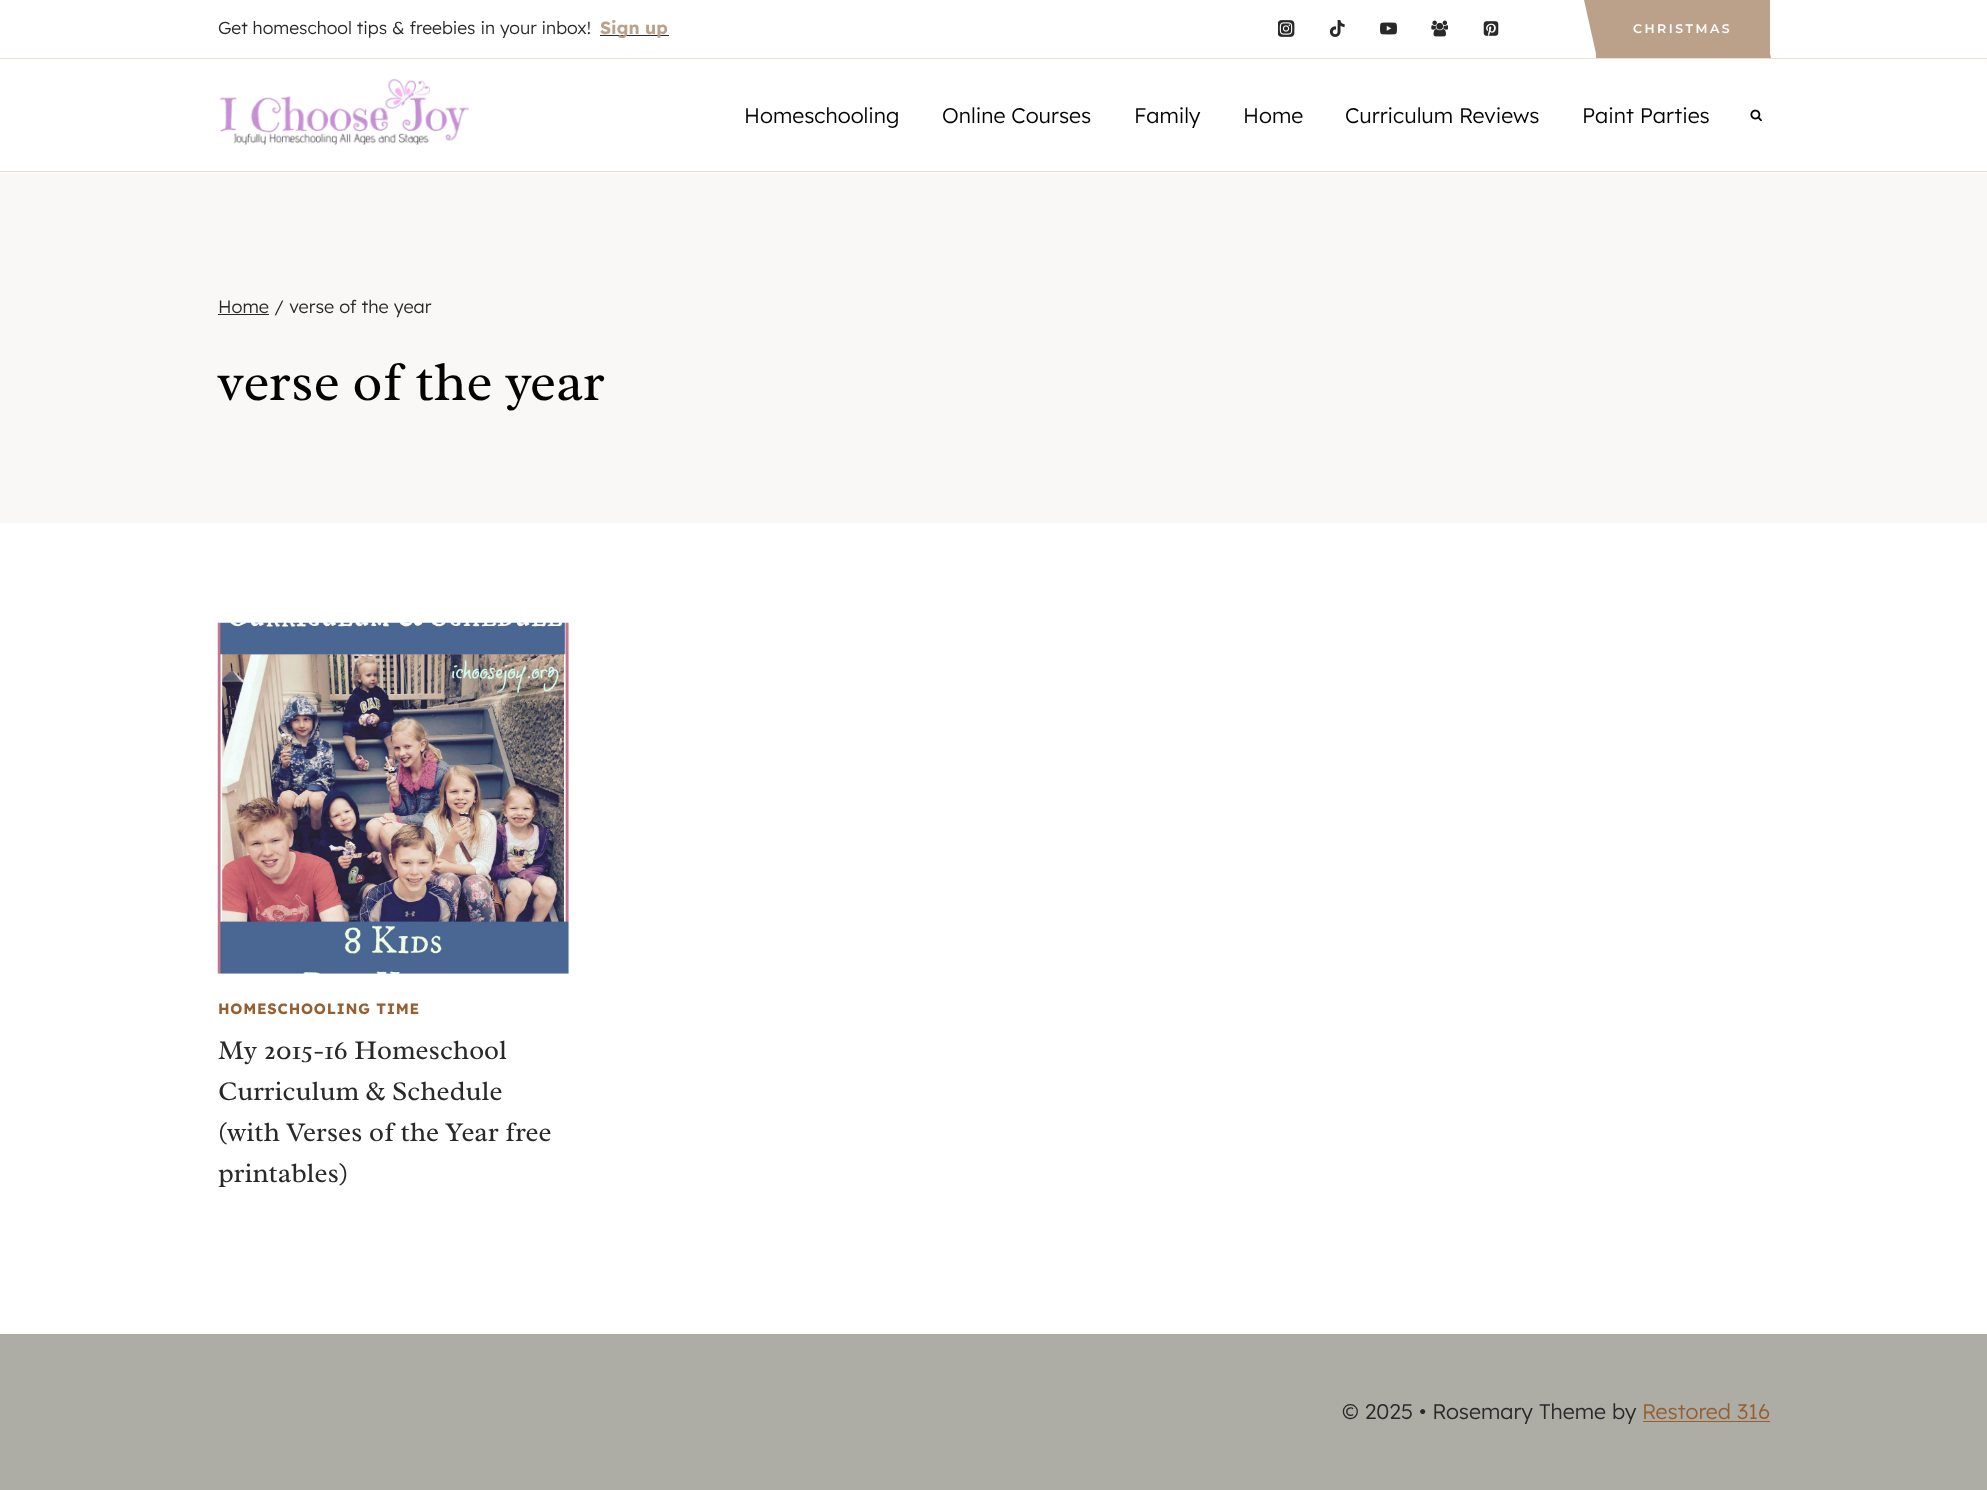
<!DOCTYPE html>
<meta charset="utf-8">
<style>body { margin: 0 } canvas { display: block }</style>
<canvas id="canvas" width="1987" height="1490"></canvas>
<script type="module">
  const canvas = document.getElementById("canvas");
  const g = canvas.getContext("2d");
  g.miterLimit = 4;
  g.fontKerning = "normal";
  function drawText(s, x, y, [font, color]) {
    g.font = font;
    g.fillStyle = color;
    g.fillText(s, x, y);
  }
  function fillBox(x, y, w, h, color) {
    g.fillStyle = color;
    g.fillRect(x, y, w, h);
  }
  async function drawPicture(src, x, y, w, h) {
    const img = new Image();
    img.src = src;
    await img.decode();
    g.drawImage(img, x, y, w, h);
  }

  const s1 = ["300 17.5px Lexend", "#292929"];
  const s2 = ["bold 17.5px Lexend", "#BBA189"];
  const s3 = ["100 12.5px Montserrat", "#FFFFFF"];
  const s4 = ["300 21.25px Lexend", "#030303"];
  const s5 = ["300 18px Lexend", "#292929"];
  const s6 = ["55px Radley", "#030303"];
  const s7 = ["bold 14.9px Lexend", "#955F32"];
  const s8 = ["27.5px Radley", "#292929"];
  const s9 = ["300 21.25px Lexend", "#292929"];
  const s10 = ["300 21.25px Lexend", "#955F32"];

  fillBox(0, 0, 1987, 1490, "#FFFFFF");
  fillBox(0, 58, 1987, 1, "#ECE0D2");
  drawText("Get homeschool tips & freebies in your inbox!", 218, 34, s1);
  fillBox(600, 35, 69, 1, "#292929");
  drawText("Sign up", 600, 34, s2);
  await drawPicture("pic1.png", 1278, 20, 17, 17);
  await drawPicture("pic2.png", 1329, 20, 16, 17);
  await drawPicture("pic3.png", 1380, 22, 17, 13);
  await drawPicture("pic4.png", 1431, 20, 17, 17);
  await drawPicture("pic5.png", 1483, 21, 16, 15);
  g.beginPath();
  g.moveTo(1584, 0);
  g.lineTo(1758, 0);
  g.lineTo(1771, 58);
  g.lineTo(1597, 58);
  g.closePath();
  g.fill();
  fillBox(1596, 0, 174, 58, "#BBA189");
  g.letterSpacing = "2.5px";
  drawText("CHRISTMAS", 1633, 33, s3);
  fillBox(0, 171, 1987, 1, "#ECE0D2");
  await drawPicture("pic6.png", 219, 78, 250, 67);
  g.letterSpacing = "0px";
  drawText("Homeschooling", 744, 123, s4);
  drawText("Online Courses", 942, 123, s4);
  drawText("Family", 1134, 123, s4);
  drawText("Home", 1243, 123, s4);
  drawText("Curriculum Reviews", 1345, 123, s4);
  drawText("Paint Parties", 1582, 123, s4);
  await drawPicture("pic7.png", 1750, 109, 12, 12);
  fillBox(0, 173, 1987, 350, "#F9F8F6");
  fillBox(218, 314, 51, 1, "#292929");
  drawText("Home / verse of the year", 218, 313, s5);
  drawText("verse of the year", 218, 400, s6);
  await drawPicture("pic8.png", 217, 622, 352, 352);
  g.letterSpacing = "0.75px";
  drawText("HOMESCHOOLING TIME", 218, 1014, s7);
  g.letterSpacing = "0px";
  drawText("My 2015-16 Homeschool", 218, 1059, s8);
  drawText("Curriculum & Schedule", 218, 1100, s8);
  drawText("(with Verses of the Year free", 218, 1141, s8);
  drawText("printables)", 218, 1182, s8);
  fillBox(0, 1334, 1987, 156, "#ADACA5");
  drawText("© 2025 • Rosemary Theme by", 1342, 1419, s9);
  drawText("Restored 316", 1642, 1419, s10);
  fillBox(1643, 1421, 127, 1, "#955F32");
</script>
